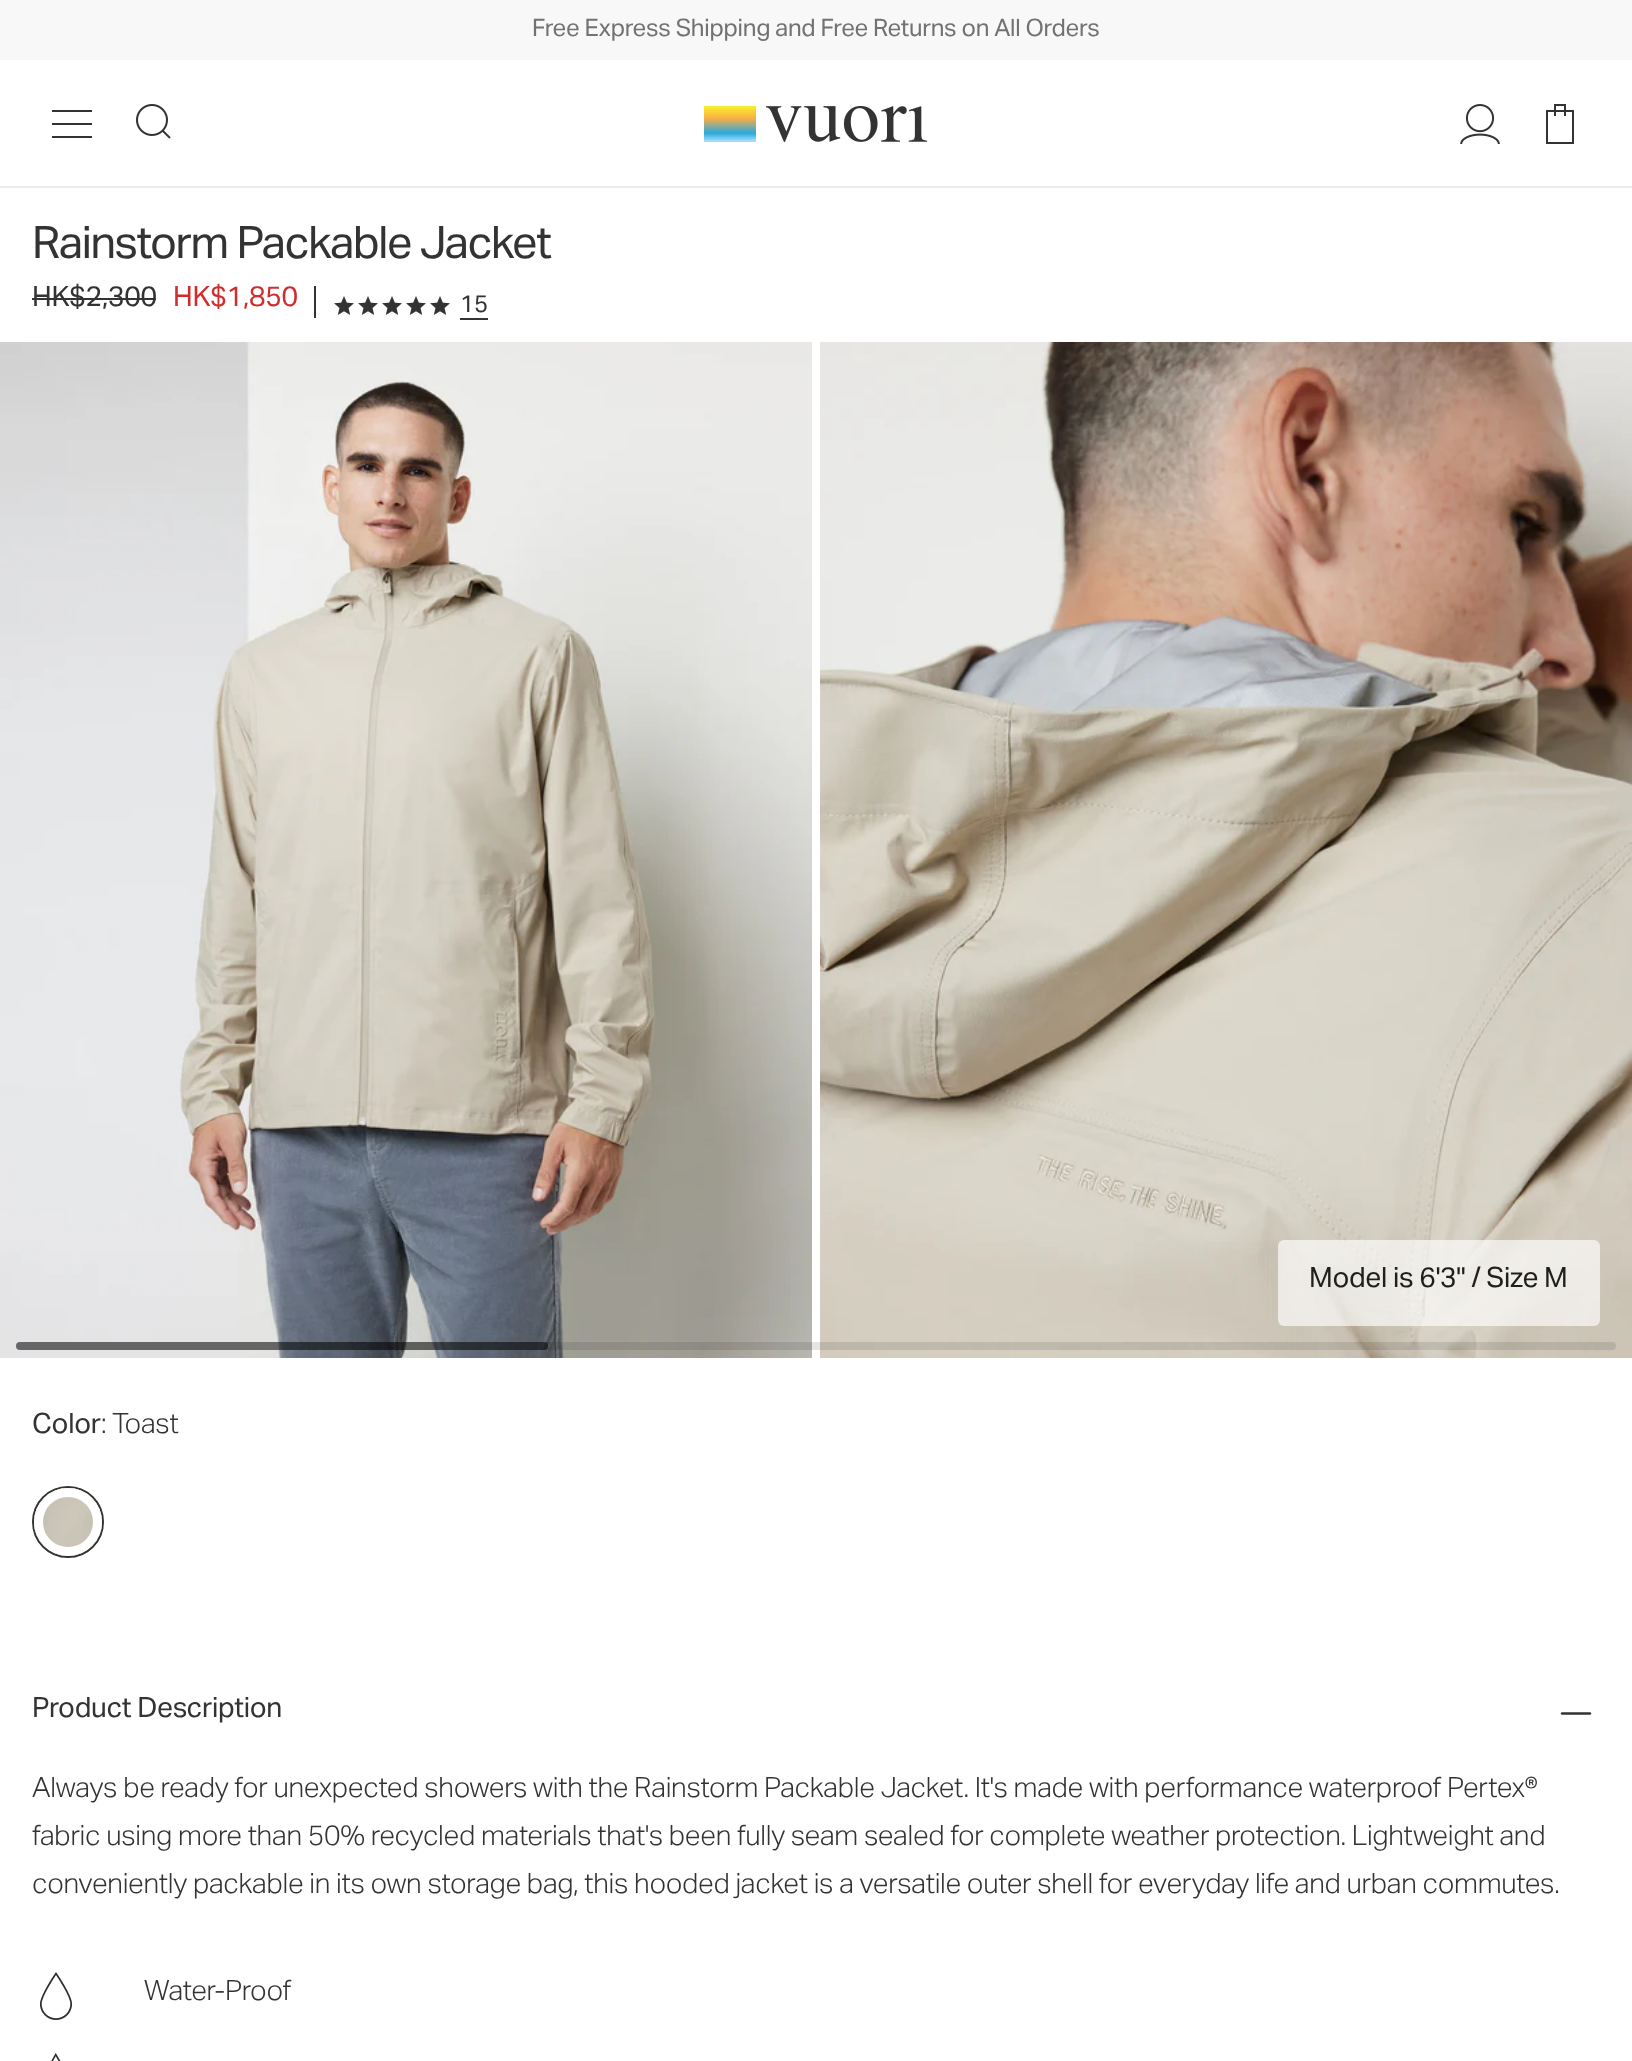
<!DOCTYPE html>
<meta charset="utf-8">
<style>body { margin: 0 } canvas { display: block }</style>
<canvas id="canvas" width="1632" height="2061"></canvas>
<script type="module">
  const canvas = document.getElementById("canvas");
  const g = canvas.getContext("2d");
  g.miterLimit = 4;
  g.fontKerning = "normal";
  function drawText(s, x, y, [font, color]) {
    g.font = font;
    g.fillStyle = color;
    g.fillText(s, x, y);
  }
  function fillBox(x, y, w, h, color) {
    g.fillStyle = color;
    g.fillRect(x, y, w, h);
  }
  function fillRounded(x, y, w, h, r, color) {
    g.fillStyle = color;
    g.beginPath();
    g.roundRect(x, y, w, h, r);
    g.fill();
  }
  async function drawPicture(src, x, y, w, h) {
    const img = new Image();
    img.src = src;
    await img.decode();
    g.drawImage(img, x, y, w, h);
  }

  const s1 = ["24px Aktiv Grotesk", "#727272"];
  const s2 = ["44.75px Aktiv Grotesk", "#333333"];
  const s3 = ["28px Aktiv Grotesk", "#333333"];
  const s4 = ["28px Aktiv Grotesk", "#D02E2E"];
  const s5 = ["24px Aktiv Grotesk", "#333333"];
  const s6 = ["28px Aktiv Grotesk", "#1F1F1E"];
  const s7 = ["300 28px Aktiv Grotesk", "#333333"];

  fillBox(0, 0, 1632, 2061, "#FFFFFF");
  fillBox(0, 0, 1632, 60, "#F8F8F8");
  g.letterSpacing = "-0.25px";
  drawText("Free Express Shipping and Free Returns on All Orders", 532, 36, s1);
  fillBox(0, 186, 1632, 2, "#EDEDED");
  fillBox(52, 136, 40, 2, "#333333");
  fillBox(52, 123, 40, 2, "#333333");
  fillBox(52, 110, 40, 2, "#333333");
  await drawPicture("pic1.png", 136, 104, 35, 35);
  await drawPicture("pic2.png", 704, 106, 224, 36);
  await drawPicture("pic3.png", 1460, 104, 40, 40);
  await drawPicture("pic4.png", 1546, 104, 28, 40);
  g.letterSpacing = "-1.35px";
  drawText("Rainstorm Packable Jacket", 32, 258, s2);
  g.letterSpacing = "-0.28px";
  drawText("HK$2,300", 32, 306, s3);
  fillBox(32, 298, 124, 2, "#333333");
  drawText("HK$1,850", 173, 306, s4);
  fillBox(314, 286, 2, 32, "#333333");
  await drawPicture("pic5.png", 334, 296, 20, 19);
  await drawPicture("pic5.png", 358, 296, 20, 19);
  await drawPicture("pic5.png", 382, 296, 20, 19);
  await drawPicture("pic5.png", 406, 296, 20, 19);
  await drawPicture("pic5.png", 430, 296, 20, 19);
  g.letterSpacing = "-0.25px";
  drawText("15", 460, 312, s5);
  fillBox(460, 318, 28, 2, "#333333");
  await drawPicture("pic6.png", 0, 342, 812, 1016);
  await drawPicture("pic7.png", 820, 342, 812, 1016);
  fillRounded(1278, 1240, 322, 86, 6, "rgba(255, 255, 255, 0.65)");
  g.letterSpacing = "-0.28px";
  drawText("Model is 6'3\" / Size M", 1309, 1287, s6);
  fillRounded(16, 1342, 1600, 8, 4, "rgba(0, 0, 0, 0.1)");
  fillRounded(16, 1342, 532, 8, 4, "rgba(0, 0, 0, 0.5)");
  drawText("Color", 32, 1433, s3);
  drawText(": Toast", 101, 1433, s7);
  await drawPicture("pic8.png", 34, 1488, 68, 68);
  g.beginPath();
  g.arc(68, 1522, 35, 0, Math.PI * 2);
  g.strokeStyle = "#333333";
  g.lineWidth = 2;
  g.stroke();
  await drawPicture("pic9.png", 34, 1488, 68, 68);
  g.beginPath();
  g.arc(68, 1522, 29.5, 0, Math.PI * 2);
  g.strokeStyle = "#FFFFFF";
  g.lineWidth = 9;
  g.stroke();
  drawText("Product Description", 32, 1717, s3);
  g.beginPath();
  g.moveTo(1590, 1713.5);
  g.lineTo(1562, 1713.5);
  g.strokeStyle = "#333333";
  g.lineWidth = 2.4;
  g.lineCap = "round";
  g.lineJoin = "round";
  g.stroke();
  drawText("Always be ready for unexpected showers with the Rainstorm Packable Jacket. It's made with performance waterproof Pertex®", 32, 1797, s7);
  drawText("fabric using more than 50% recycled materials that's been fully seam sealed for complete weather protection. Lightweight and", 32, 1845, s7);
  drawText("conveniently packable in its own storage bag, this hooded jacket is a versatile outer shell for everyday life and urban commutes.", 32, 1893, s7);
  await drawPicture("pic10.png", 40, 1972, 32, 48);
  drawText("Water-Proof", 144, 2000, s7);
  await drawPicture("pic11.png", 51, 2053, 10, 8);
</script>
